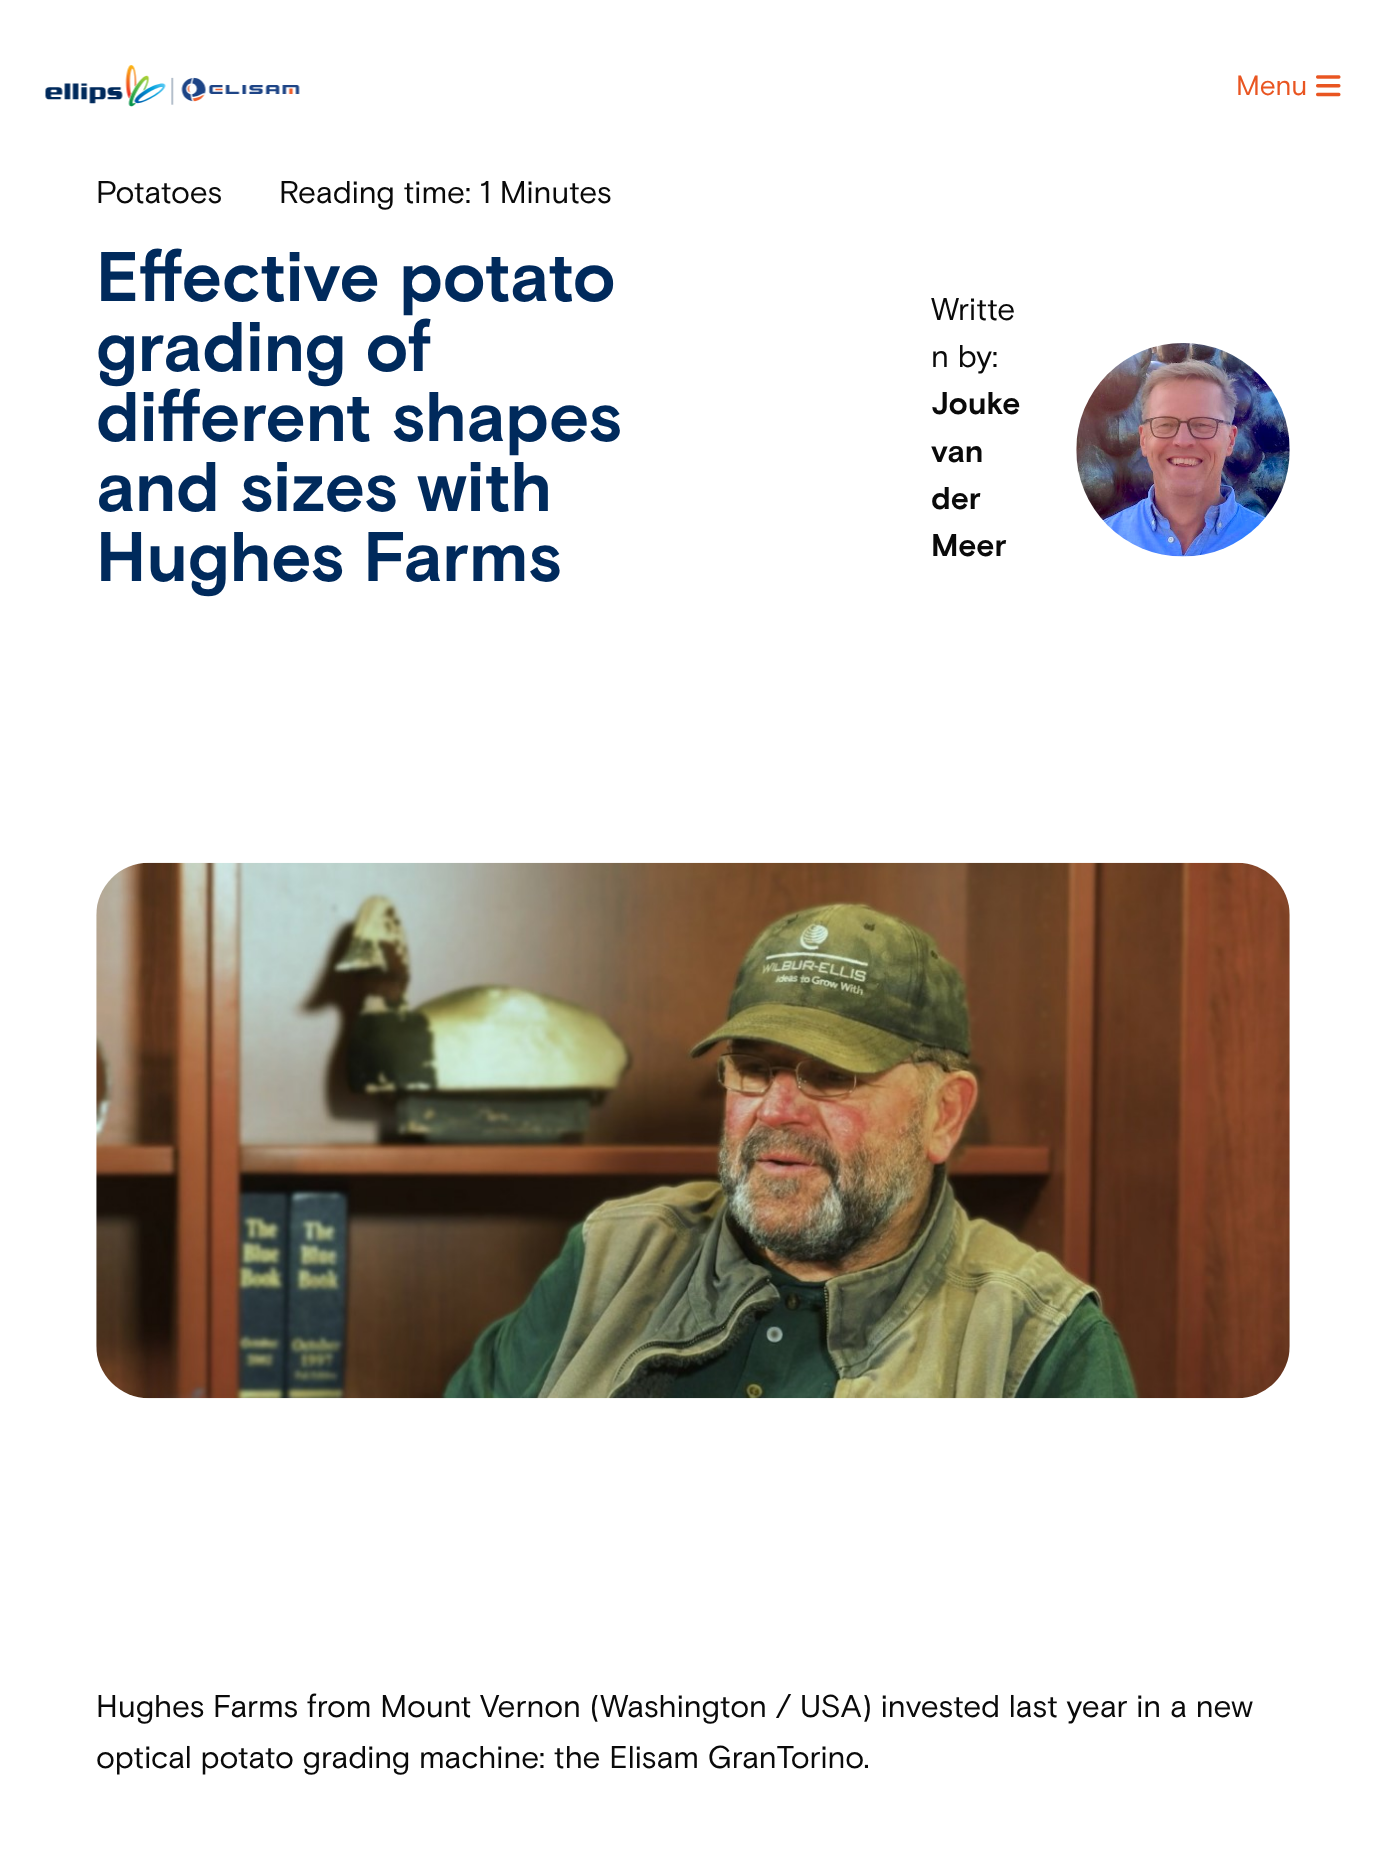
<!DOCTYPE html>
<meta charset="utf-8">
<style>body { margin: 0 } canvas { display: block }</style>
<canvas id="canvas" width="1385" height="1852"></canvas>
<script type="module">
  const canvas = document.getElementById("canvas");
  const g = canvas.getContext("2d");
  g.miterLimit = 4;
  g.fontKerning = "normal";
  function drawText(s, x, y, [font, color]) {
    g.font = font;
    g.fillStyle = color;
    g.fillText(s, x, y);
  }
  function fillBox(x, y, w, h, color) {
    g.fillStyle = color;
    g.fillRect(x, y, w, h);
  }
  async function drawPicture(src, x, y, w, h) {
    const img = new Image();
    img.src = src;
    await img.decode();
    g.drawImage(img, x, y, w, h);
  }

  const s1 = ["28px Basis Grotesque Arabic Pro", "#E95521"];
  const s2 = ["31.5px Basis Grotesque Arabic Pro", "#0A0A0A"];
  const s3 = ["bold 70px Basis Grotesque Arabic Pro", "#002A5C"];
  const s4 = ["bold 31.5px Basis Grotesque Arabic Pro", "#0A0A0A"];

  fillBox(0, 0, 1385, 1852, "#FFFFFF");
  await drawPicture("pic1.png", 45, 65, 255, 42);
  drawText("Menu", 1236, 95, s1);
  await drawPicture("pic2.png", 1316, 75, 25, 22);
  drawText("Potatoes", 96, 203, s2);
  drawText("Reading time: 1 Minutes", 279, 203, s2);
  drawText("Effective potato", 96, 301, s3);
  drawText("grading of", 96, 371, s3);
  drawText("different shapes", 96, 441, s3);
  drawText("and sizes with", 96, 511, s3);
  drawText("Hughes Farms", 96, 581, s3);
  drawText("Writte", 931, 320, s2);
  drawText("n by:", 931, 367, s2);
  drawText("Jouke", 931, 414, s4);
  drawText("van", 931, 462, s4);
  drawText("der", 931, 509, s4);
  drawText("Meer", 931, 556, s4);
  await drawPicture("pic3.png", 1076, 343, 214, 214);
  await drawPicture("pic4.png", 96, 862, 1194, 537);
  drawText("Hughes Farms from Mount Vernon (Washington / USA) invested last year in a new", 96, 1717, s2);
  drawText("optical potato grading machine: the Elisam GranTorino.", 96, 1768, s2);
</script>
